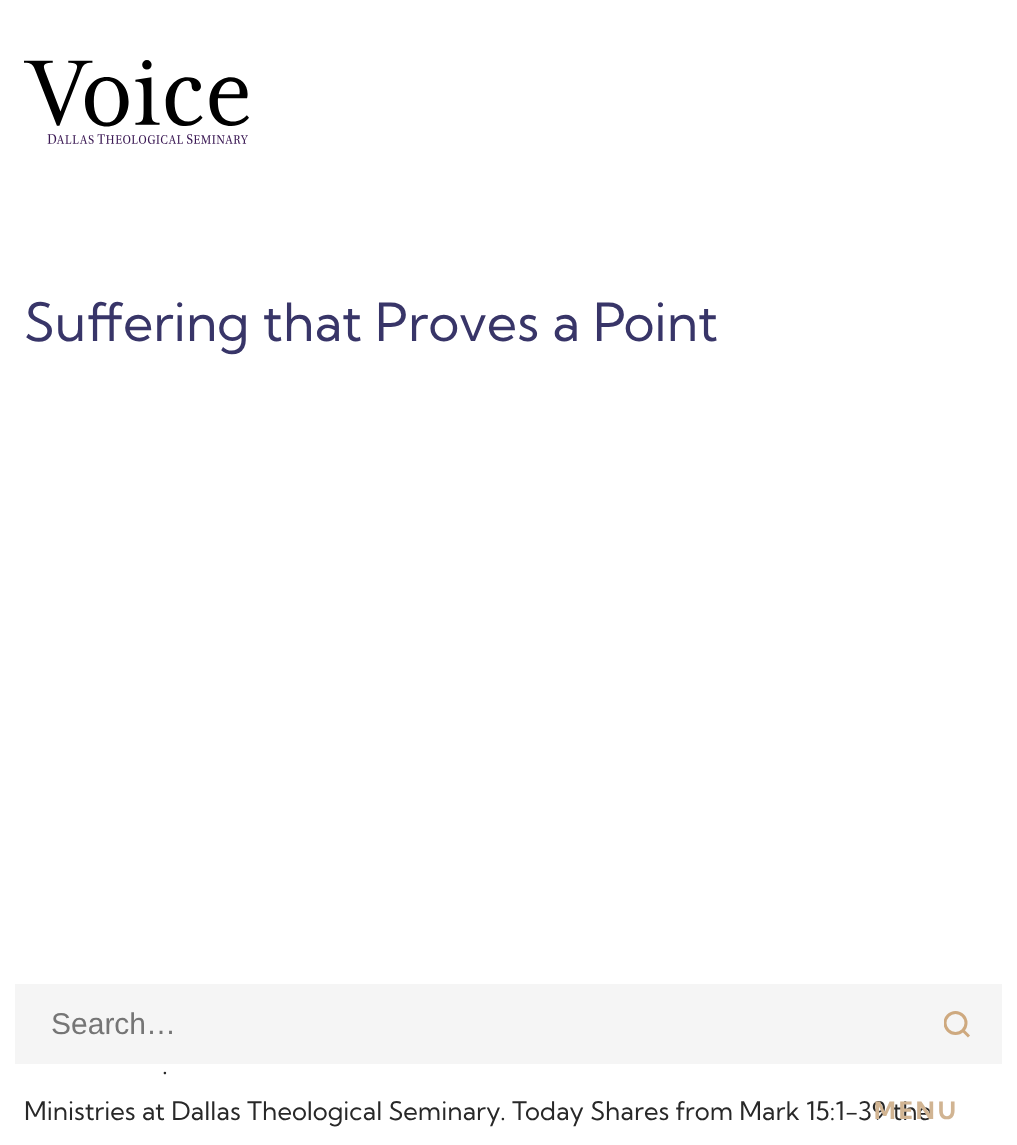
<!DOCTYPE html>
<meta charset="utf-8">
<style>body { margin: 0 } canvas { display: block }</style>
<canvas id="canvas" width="1017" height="1145"></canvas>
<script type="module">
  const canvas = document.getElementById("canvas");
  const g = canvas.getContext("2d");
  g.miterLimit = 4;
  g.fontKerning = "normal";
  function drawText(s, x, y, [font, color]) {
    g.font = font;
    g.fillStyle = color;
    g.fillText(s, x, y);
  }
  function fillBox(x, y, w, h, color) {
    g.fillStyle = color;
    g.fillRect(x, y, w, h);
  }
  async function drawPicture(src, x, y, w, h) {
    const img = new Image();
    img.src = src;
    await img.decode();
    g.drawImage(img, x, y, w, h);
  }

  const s1 = ["52.5px Kumbh Sans", "#383568"];
  const s2 = ["25.5px Kumbh Sans", "#282828"];
  const s3 = ["30px Liberation Sans", "#757575"];
  const s4 = ["bold 24px Kumbh Sans", "#D1B492"];

  fillBox(0, 0, 1017, 1145, "#FFFFFF");
  drawText("Suffering that Proves a Point", 24, 341, s1);
  drawText(".", 162, 1074, s2);
  drawText("Ministries at Dallas Theological Seminary. Today Shares from Mark 15:1-39 the", 24, 1120, s2);
  await drawPicture("pic1.png", 24, 60, 225, 84);
  fillBox(15, 984, 987, 80, "#F5F5F5");
  drawText("Search…", 51, 1034, s3);
  g.save();
  g.beginPath();
  g.rect(944, 1011, 27, 27);
  g.clip();
  g.beginPath();
  g.arc(955.5, 1023, 10.5, 0, Math.PI * 2);
  g.strokeStyle = "#CEA97F";
  g.lineWidth = 3;
  g.stroke();
  g.restore();
  g.beginPath();
  g.moveTo(969, 1036.5);
  g.lineTo(963, 1030.5);
  g.strokeStyle = "#CEA97F";
  g.lineWidth = 3;
  g.stroke();
  g.letterSpacing = "3px";
  drawText("MENU", 874, 1119, s4);
</script>
